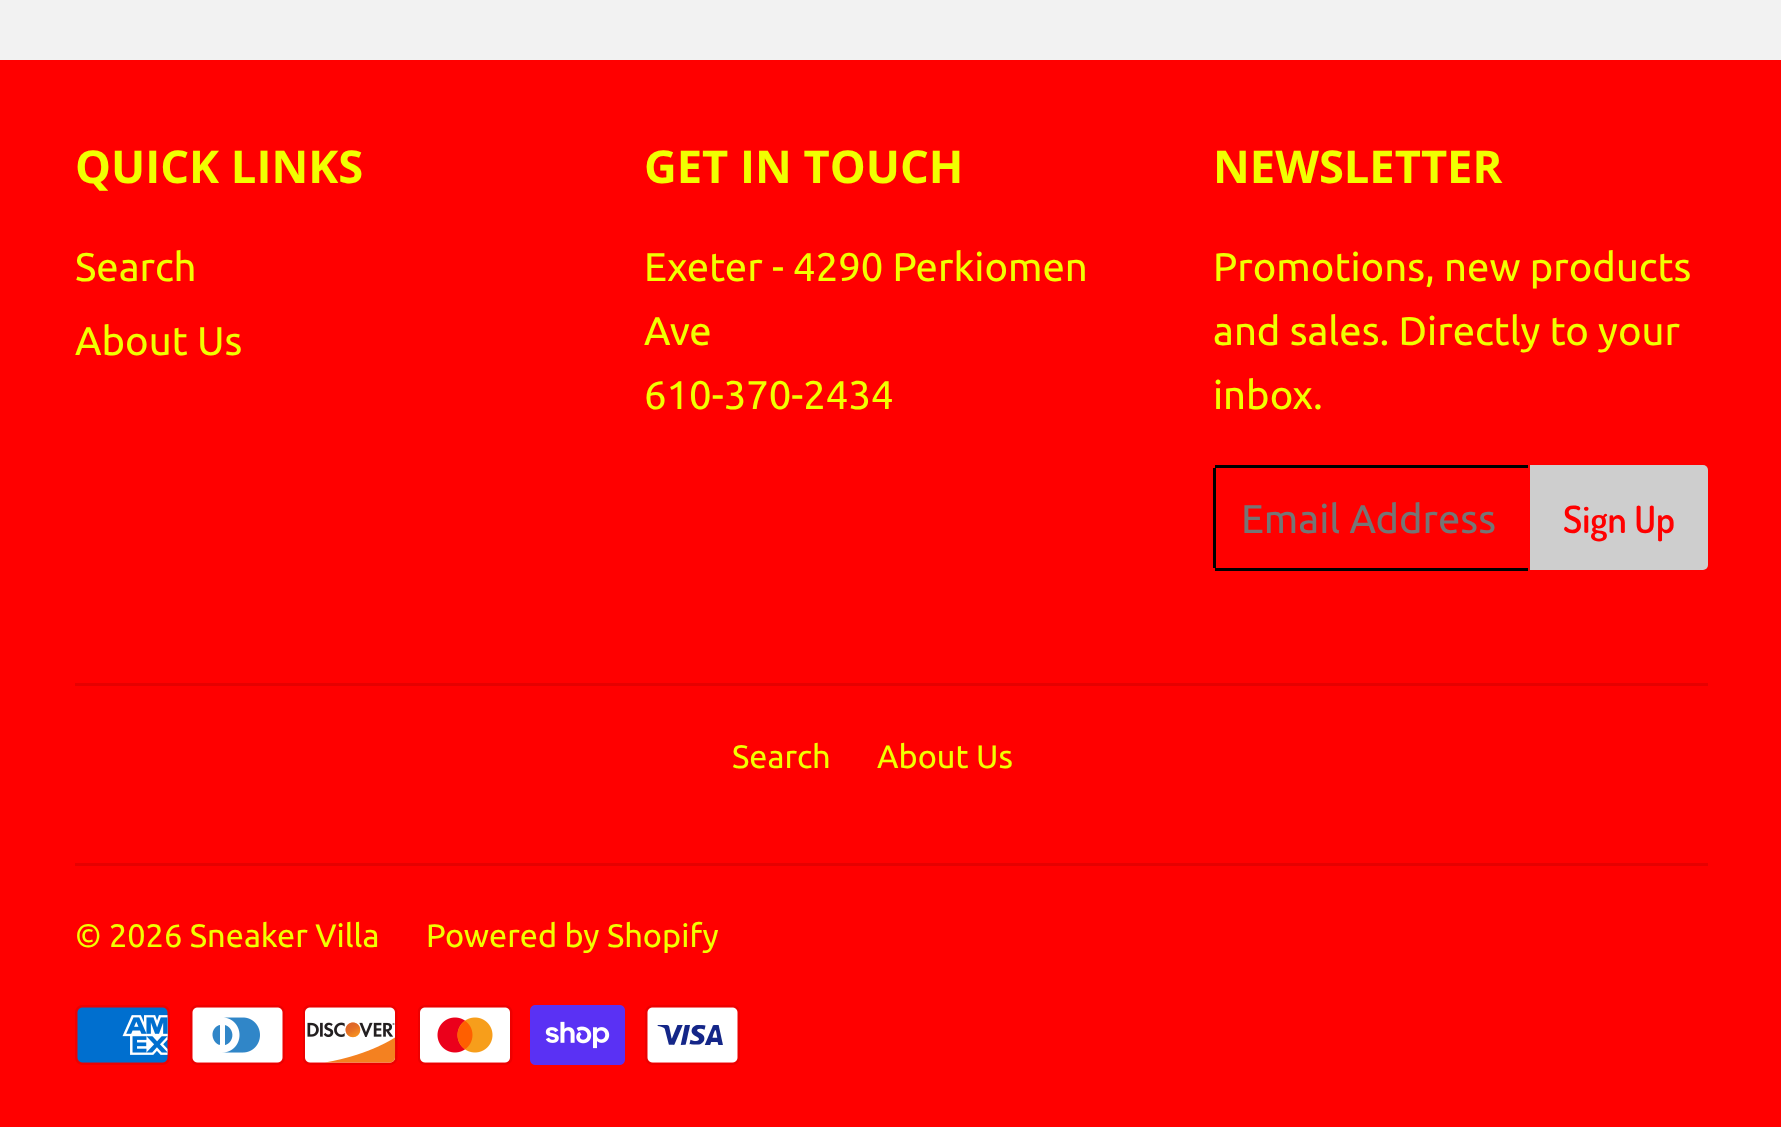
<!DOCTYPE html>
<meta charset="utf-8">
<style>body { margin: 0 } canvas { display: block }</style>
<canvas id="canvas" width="1781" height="1127"></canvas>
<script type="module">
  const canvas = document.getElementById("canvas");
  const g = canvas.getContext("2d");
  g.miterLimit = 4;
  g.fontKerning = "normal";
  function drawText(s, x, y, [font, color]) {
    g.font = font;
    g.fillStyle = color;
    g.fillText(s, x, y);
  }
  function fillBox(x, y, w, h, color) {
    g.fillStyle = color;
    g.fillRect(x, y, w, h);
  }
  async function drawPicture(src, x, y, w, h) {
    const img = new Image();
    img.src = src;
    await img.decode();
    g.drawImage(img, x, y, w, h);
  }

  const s1 = ["bold 45.25px Open Sans", "#F1FF00"];
  const s2 = ["40px Ubuntu", "#F1FF00"];
  const s3 = ["40px Ubuntu", "#757575"];
  const s4 = ["600 37.5px Dosis", "#FF0000"];
  const s5 = ["32.5px Ubuntu", "#F1FF00"];

  fillBox(0, 0, 1781, 1127, "#F2F2F2");
  fillBox(0, 60, 1781, 1067, "#FF0000");
  drawText("QUICK LINKS", 75, 183, s1);
  drawText("Search", 75, 281, s2);
  drawText("About Us", 75, 355, s2);
  drawText("GET IN TOUCH", 644, 183, s1);
  drawText("Exeter - 4290 Perkiomen", 644, 281, s2);
  drawText("Ave", 644, 345, s2);
  drawText("610-370-2434", 644, 409, s2);
  drawText("NEWSLETTER", 1213, 183, s1);
  drawText("Promotions, new products", 1213, 281, s2);
  drawText("and sales. Directly to your", 1213, 345, s2);
  drawText("inbox.", 1213, 409, s2);
  fillBox(1215, 465, 313, 3, "#000000");
  fillBox(1215, 568, 313, 3, "#000000");
  fillBox(1213, 468, 3, 100, "#000000");
  drawText("Email Address", 1241, 533, s3);
  g.fillStyle = "#CECECE";
  g.beginPath();
  g.roundRect(1530, 465, 178, 105, [0, 5, 5, 0]);
  g.fill();
  drawText("Sign Up", 1563, 533, s4);
  fillBox(75, 683, 1633, 3, "#E60000");
  drawText("Search", 732, 768, s5);
  drawText("About Us", 877, 768, s5);
  fillBox(75, 863, 1633, 3, "#E60000");
  drawText("© 2026 Sneaker Villa", 75, 947, s5);
  drawText("Powered by Shopify", 426, 947, s5);
  await drawPicture("pic1.png", 75, 1005, 95, 60);
  await drawPicture("pic2.png", 190, 1005, 95, 60);
  await drawPicture("pic3.png", 303, 1005, 95, 60);
  await drawPicture("pic4.png", 418, 1005, 95, 60);
  await drawPicture("pic5.png", 530, 1005, 95, 60);
  await drawPicture("pic6.png", 645, 1005, 95, 60);
</script>
